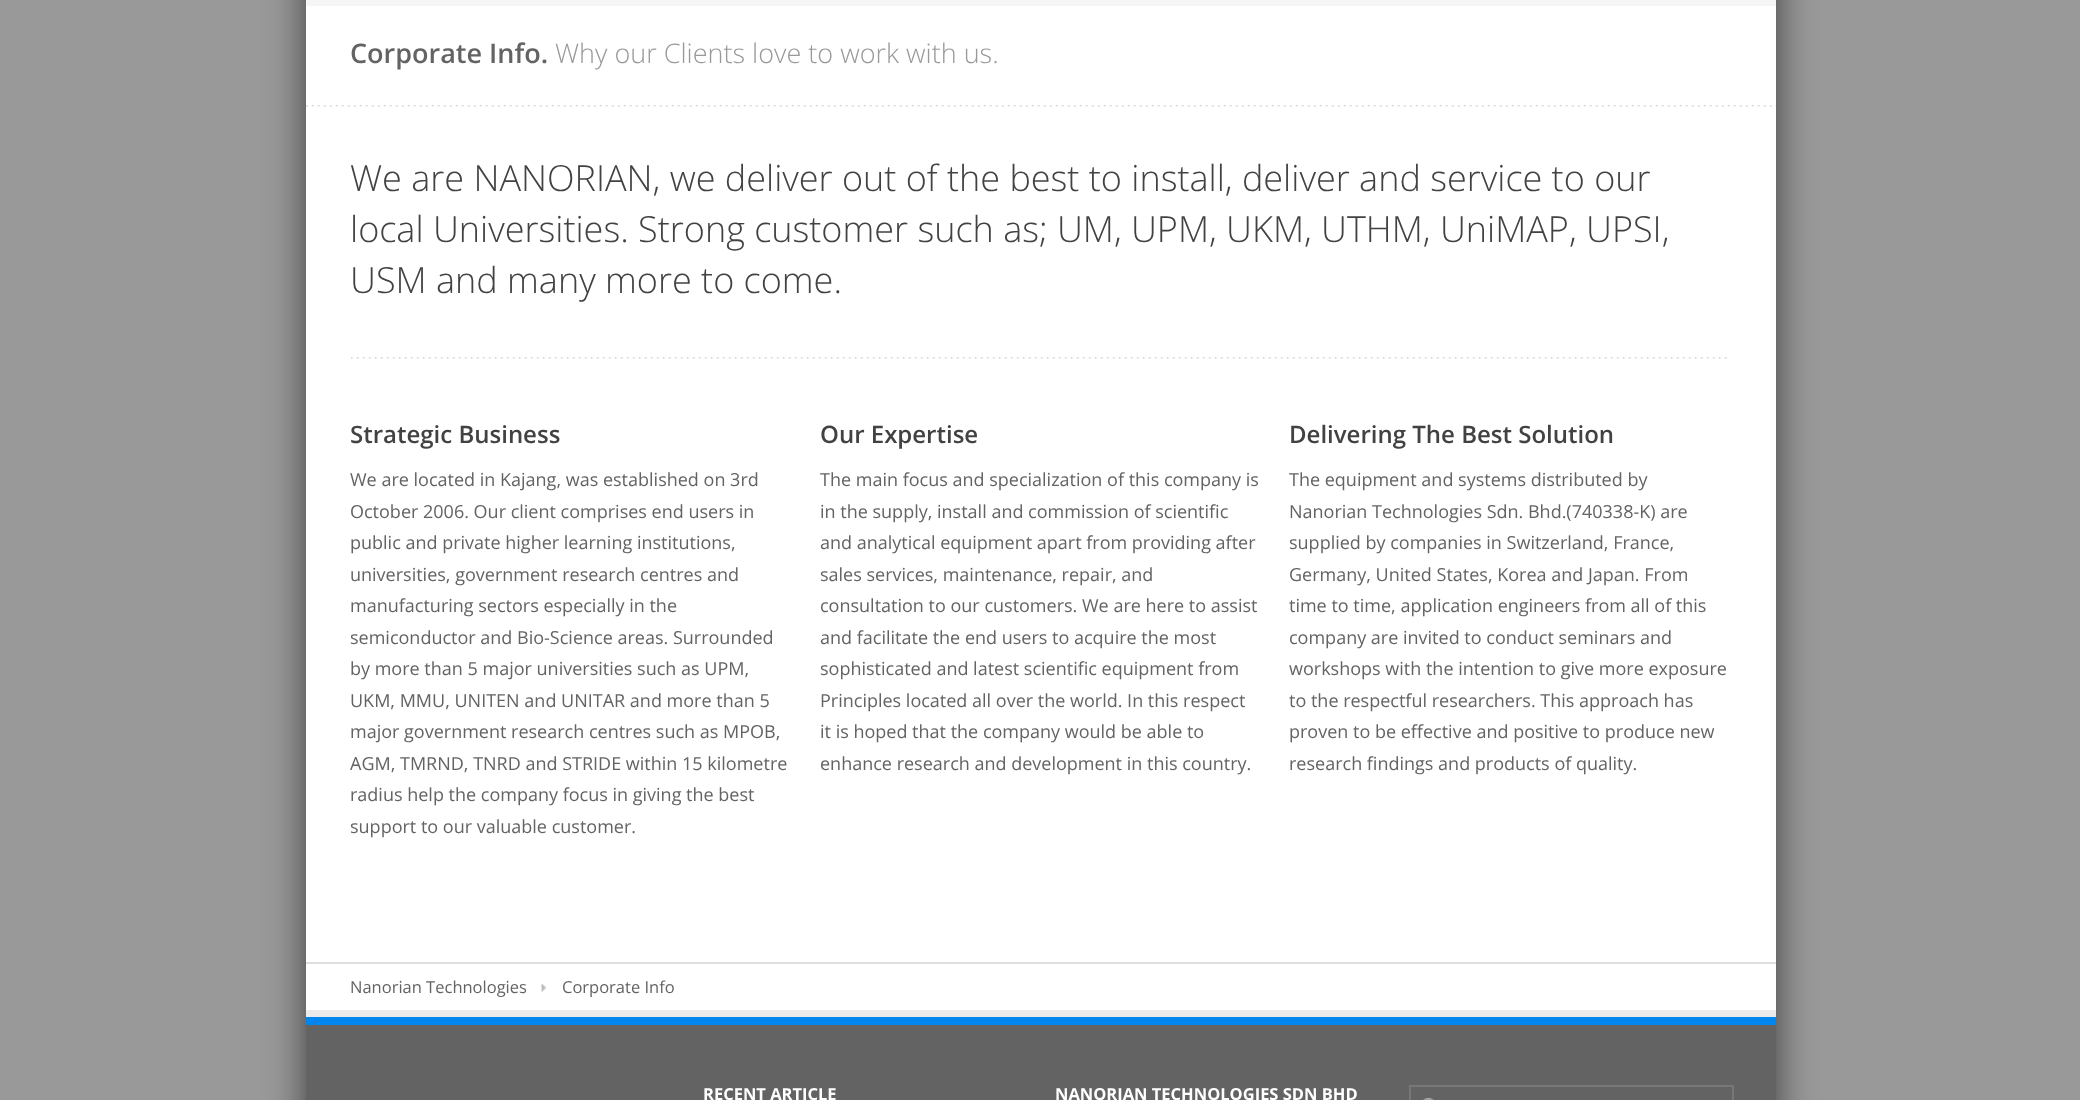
<!DOCTYPE html>
<meta charset="utf-8">
<style>body { margin: 0 } canvas { display: block }</style>
<canvas id="canvas" width="2080" height="1100"></canvas>
<script type="module">
  const canvas = document.getElementById("canvas");
  const g = canvas.getContext("2d");
  g.miterLimit = 4;
  g.fontKerning = "normal";
  function drawText(s, x, y, [font, color]) {
    g.font = font;
    g.fillStyle = color;
    g.fillText(s, x, y);
  }
  function fillBox(x, y, w, h, color) {
    g.fillStyle = color;
    g.fillRect(x, y, w, h);
  }
  async function drawPicture(src, x, y, w, h) {
    const img = new Image();
    img.src = src;
    await img.decode();
    g.drawImage(img, x, y, w, h);
  }

  const s1 = ["600 27px Open Sans", "#636363"];
  const s2 = ["300 27px Open Sans", "#999999"];
  const s3 = ["300 36px Open Sans", "#434242"];
  const s4 = ["600 24px Open Sans", "#434242"];
  const s5 = ["18px Open Sans", "#636363"];
  const s6 = ["16.5px Open Sans", "#636363"];
  const s7 = ["bold 16.5px Open Sans", "#FFFFFF"];

  fillBox(0, 0, 2080, 1100, "#999999");
  g.fillStyle = "rgba(0, 0, 0, 0.6)";
  g.filter = "blur(19px)";
  g.beginPath();
  g.rect(306, -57, 1470, 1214);
  g.fill();
  g.filter = "none";
  fillBox(306, 6, 1470, 1004, "#FFFFFF");
  fillBox(306, 0, 1470, 6, "#F5F5F5");
  await drawPicture("pic1.png", 306, 105, 1470, 2);
  drawText("Corporate Info.", 350, 63, s1);
  drawText("Why our Clients love to work with us.", 555, 63, s2);
  drawText("We are NANORIAN, we deliver out of the best to install, deliver and service to our", 350, 191, s3);
  drawText("local Universities. Strong customer such as; UM, UPM, UKM, UTHM, UniMAP, UPSI,", 350, 242, s3);
  drawText("USM and many more to come.", 350, 293, s3);
  await drawPicture("pic2.png", 351, 357, 1380, 2);
  drawText("Strategic Business", 350, 443, s4);
  drawText("We are located in Kajang, was established on 3rd", 350, 486, s5);
  drawText("October 2006. Our client comprises end users in", 350, 518, s5);
  drawText("public and private higher learning institutions,", 350, 549, s5);
  drawText("universities, government research centres and", 350, 581, s5);
  drawText("manufacturing sectors especially in the", 350, 612, s5);
  drawText("semiconductor and Bio-Science areas. Surrounded", 350, 644, s5);
  drawText("by more than 5 major universities such as UPM,", 350, 675, s5);
  drawText("UKM, MMU, UNITEN and UNITAR and more than 5", 350, 707, s5);
  drawText("major government research centres such as MPOB,", 350, 738, s5);
  drawText("AGM, TMRND, TNRD and STRIDE within 15 kilometre", 350, 770, s5);
  drawText("radius help the company focus in giving the best", 350, 801, s5);
  drawText("support to our valuable customer.", 350, 833, s5);
  drawText("Our Expertise", 820, 443, s4);
  drawText("The main focus and specialization of this company is", 820, 486, s5);
  drawText("in the supply, install and commission of scientific", 820, 518, s5);
  drawText("and analytical equipment apart from providing after", 820, 549, s5);
  drawText("sales services, maintenance, repair, and", 820, 581, s5);
  drawText("consultation to our customers. We are here to assist", 820, 612, s5);
  drawText("and facilitate the end users to acquire the most", 820, 644, s5);
  drawText("sophisticated and latest scientific equipment from", 820, 675, s5);
  drawText("Principles located all over the world. In this respect", 820, 707, s5);
  drawText("it is hoped that the company would be able to", 820, 738, s5);
  drawText("enhance research and development in this country.", 820, 770, s5);
  drawText("Delivering The Best Solution", 1289, 443, s4);
  drawText("The equipment and systems distributed by", 1289, 486, s5);
  drawText("Nanorian Technologies Sdn. Bhd.(740338-K) are", 1289, 518, s5);
  drawText("supplied by companies in Switzerland, France,", 1289, 549, s5);
  drawText("Germany, United States, Korea and Japan. From", 1289, 581, s5);
  drawText("time to time, application engineers from all of this", 1289, 612, s5);
  drawText("company are invited to conduct seminars and", 1289, 644, s5);
  drawText("workshops with the intention to give more exposure", 1289, 675, s5);
  drawText("to the respectful researchers. This approach has", 1289, 707, s5);
  drawText("proven to be effective and positive to produce new", 1289, 738, s5);
  drawText("research findings and products of quality.", 1289, 770, s5);
  fillBox(306, 962, 1470, 2, "#DEDEDE");
  fillBox(306, 1010, 1470, 7, "#EBEBEB");
  drawText("Nanorian Technologies", 350, 993, s6);
  await drawPicture("pic3.png", 541, 983, 5, 9);
  drawText("Corporate Info", 562, 993, s6);
  fillBox(306, 1017, 1470, 8, "#0086ED");
  fillBox(306, 1025, 1470, 75, "#636363");
  drawText("RECENT ARTICLE", 703, 1100, s7);
  drawText("NANORIAN TECHNOLOGIES SDN BHD", 1055, 1100, s7);
  await drawPicture("pic4.png", 1423, 1098, 12, 2);
  g.strokeStyle = "#777777";
  g.lineWidth = 2;
  g.strokeRect(1410, 1086, 323, 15);
</script>
